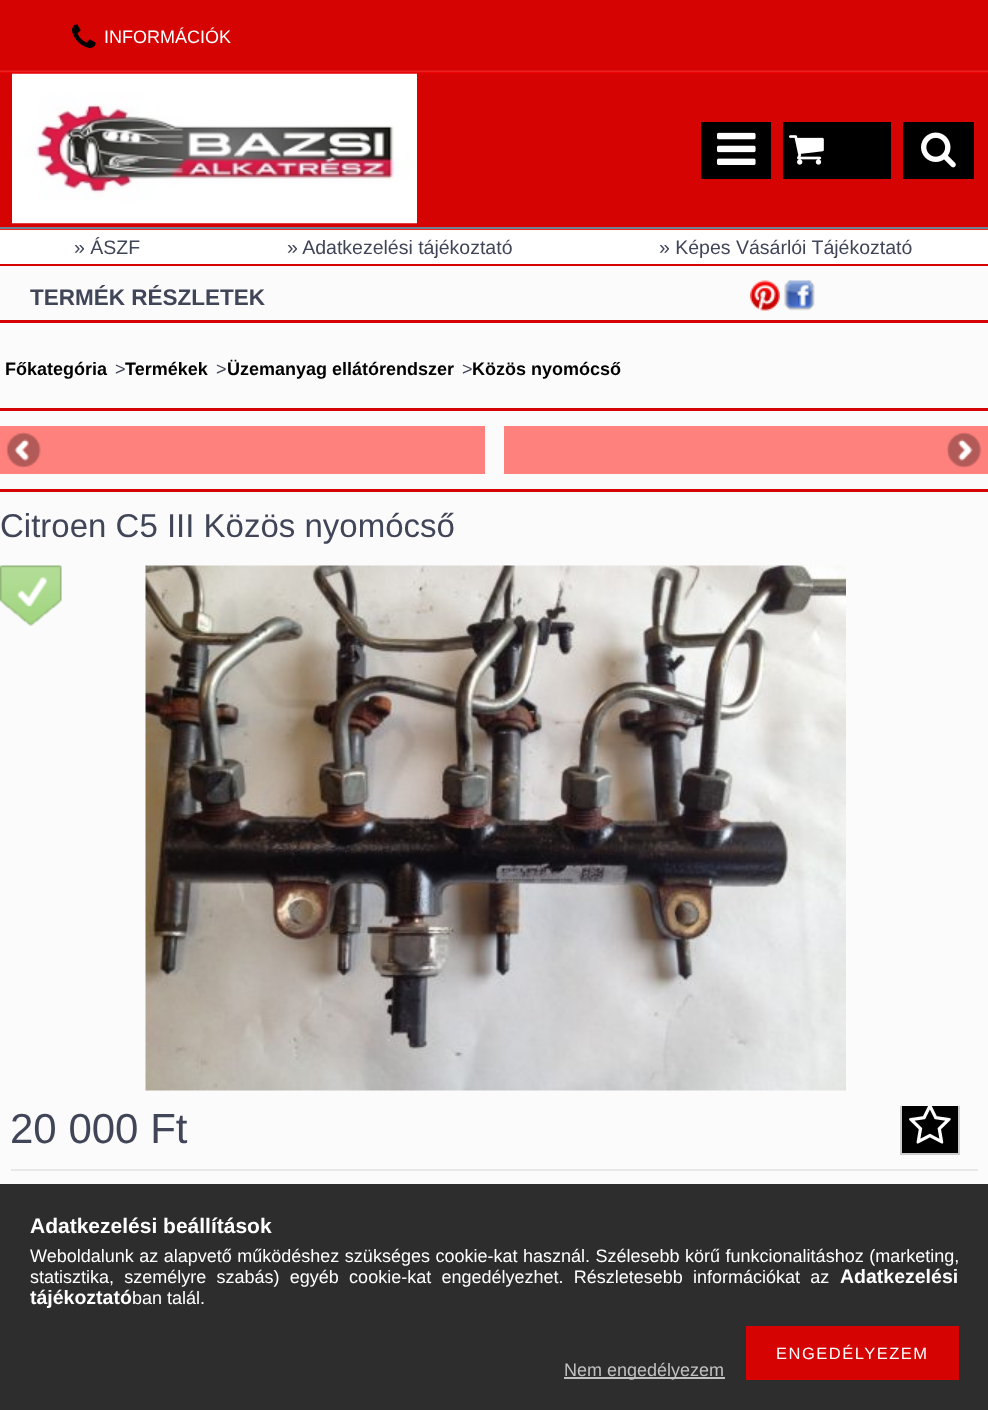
<!DOCTYPE html>
<meta charset="utf-8">
<style>body { margin: 0 } canvas { display: block }</style>
<canvas id="canvas" width="988" height="1410"></canvas>
<script type="module">
  const canvas = document.getElementById("canvas");
  const g = canvas.getContext("2d");
  g.miterLimit = 4;
  g.fontKerning = "normal";
  function drawText(s, x, y, [font, color]) {
    g.font = font;
    g.fillStyle = color;
    g.fillText(s, x, y);
  }
  function fillBox(x, y, w, h, color) {
    g.fillStyle = color;
    g.fillRect(x, y, w, h);
  }
  async function drawPicture(src, x, y, w, h) {
    const img = new Image();
    img.src = src;
    await img.decode();
    g.drawImage(img, x, y, w, h);
  }

  const s1 = ["18px Liberation Sans", "#FFFFFF"];
  const s2 = ["19.5px Liberation Sans", "#414558"];
  const s3 = ["bold 22.5px Liberation Sans", "#414558"];
  const s4 = ["bold 18px Liberation Sans", "#000000"];
  const s5 = ["18px Liberation Sans", "#414558"];
  const s6 = ["33px Liberation Sans", "#414558"];
  const s7 = ["42px Liberation Sans", "#414558"];
  const s8 = ["bold 21px Liberation Sans", "#FFFFFF"];
  const s9 = ["bold 19.5px Liberation Sans", "#FFFFFF"];
  const s10 = ["16.5px Liberation Sans", "#FFFFFF"];
  const s11 = ["18px Liberation Sans", "#C0C0C0"];

  fillBox(0, 0, 988, 1410, "#FBFBFB");
  fillBox(0, 1184, 988, 226, "#2D2D2D");
  fillBox(0, 0, 988, 227, "#D60303");
  fillBox(0, 229, 988, 1, "#EE2727");
  fillBox(0, 227, 988, 2, "#6D8696");
  await drawPicture("pic1.png", 0, 70, 988, 4);
  await drawPicture("pic2.png", 72, 24, 24, 24);
  drawText("INFORMÁCIÓK", 104, 43, s1);
  await drawPicture("pic3.png", 12, 73, 405, 151);
  fillBox(701, 122, 70, 57, "#000000");
  await drawPicture("pic4.png", 717, 132, 39, 33);
  fillBox(783, 122, 108, 57, "#000000");
  await drawPicture("pic5.png", 789, 135, 35, 30);
  fillBox(903, 122, 71, 57, "#000000");
  await drawPicture("pic6.png", 921, 132, 35, 36);
  fillBox(0, 230, 988, 34, "#FFFFFF");
  fillBox(0, 264, 988, 2, "#D60303");
  drawText("» ÁSZF", 74, 254, s2);
  drawText("» Adatkezelési tájékoztató", 287, 254, s2);
  drawText("» Képes Vásárlói Tájékoztató", 659, 254, s2);
  drawText("TERMÉK RÉSZLETEK", 30, 305, s3);
  fillBox(0, 320, 988, 3, "#D60303");
  drawText("Főkategória", 5, 375, s4);
  drawText(">", 115, 375, s5);
  drawText("Termékek", 125, 375, s4);
  drawText(">", 216, 375, s5);
  drawText("Üzemanyag ellátórendszer", 227, 375, s4);
  drawText(">", 462, 375, s5);
  drawText("Közös nyomócső", 472, 375, s4);
  fillBox(0, 408, 988, 3, "#D60303");
  fillBox(0, 426, 485, 48, "#FE817D");
  await drawPicture("pic7.png", 6, 432, 35, 36);
  fillBox(504, 426, 484, 48, "#FE817D");
  await drawPicture("pic8.png", 946, 432, 36, 36);
  fillBox(0, 489, 988, 3, "#D60303");
  await drawPicture("pic9.png", 750, 280, 30, 31);
  await drawPicture("pic10.png", 784, 280, 31, 31);
  drawText("Citroen C5 III Közös nyomócső", 0, 537, s6);
  await drawPicture("pic11.png", 0, 565, 62, 61);
  await drawPicture("pic12.png", 145, 565, 701, 526);
  fillBox(11, 1169, 967, 2, "#E8E8E8");
  drawText("20 000 Ft", 10, 1143, s7);
  fillBox(902, 1106, 56, 47, "#000000");
  g.save();
  g.beginPath();
  g.rect(900, 1106, 78, 64);
  g.clip();
  g.strokeStyle = "#CCCCCC";
  g.lineWidth = 2;
  g.strokeRect(901, 1096, 58, 58);
  g.restore();
  await drawPicture("pic13.png", 909, 1106, 42, 38);
  drawText("Adatkezelési beállítások", 30, 1233, s8);
  g.wordSpacing = "0.5px";
  drawText("Weboldalunk az alapvető működéshez szükséges cookie-kat használ. Szélesebb körű funkcionalitáshoz (marketing,", 30, 1262, s1);
  g.wordSpacing = "5.25px";
  drawText("statisztika, személyre szabás) egyéb cookie-kat engedélyezhet. Részletesebb információkat az", 30, 1283, s1);
  g.wordSpacing = "0px";
  drawText("Adatkezelési", 840, 1283, s9);
  drawText("tájékoztató", 30, 1304, s9);
  drawText("ban talál.", 132, 1304, s1);
  fillBox(746, 1326, 213, 54, "#D60303");
  g.letterSpacing = "1.5px";
  drawText("ENGEDÉLYEZEM", 776, 1359, s10);
  fillBox(564, 1377, 161, 2, "#C0C0C0");
  g.letterSpacing = "0px";
  drawText("Nem engedélyezem", 564, 1376, s11);
</script>
